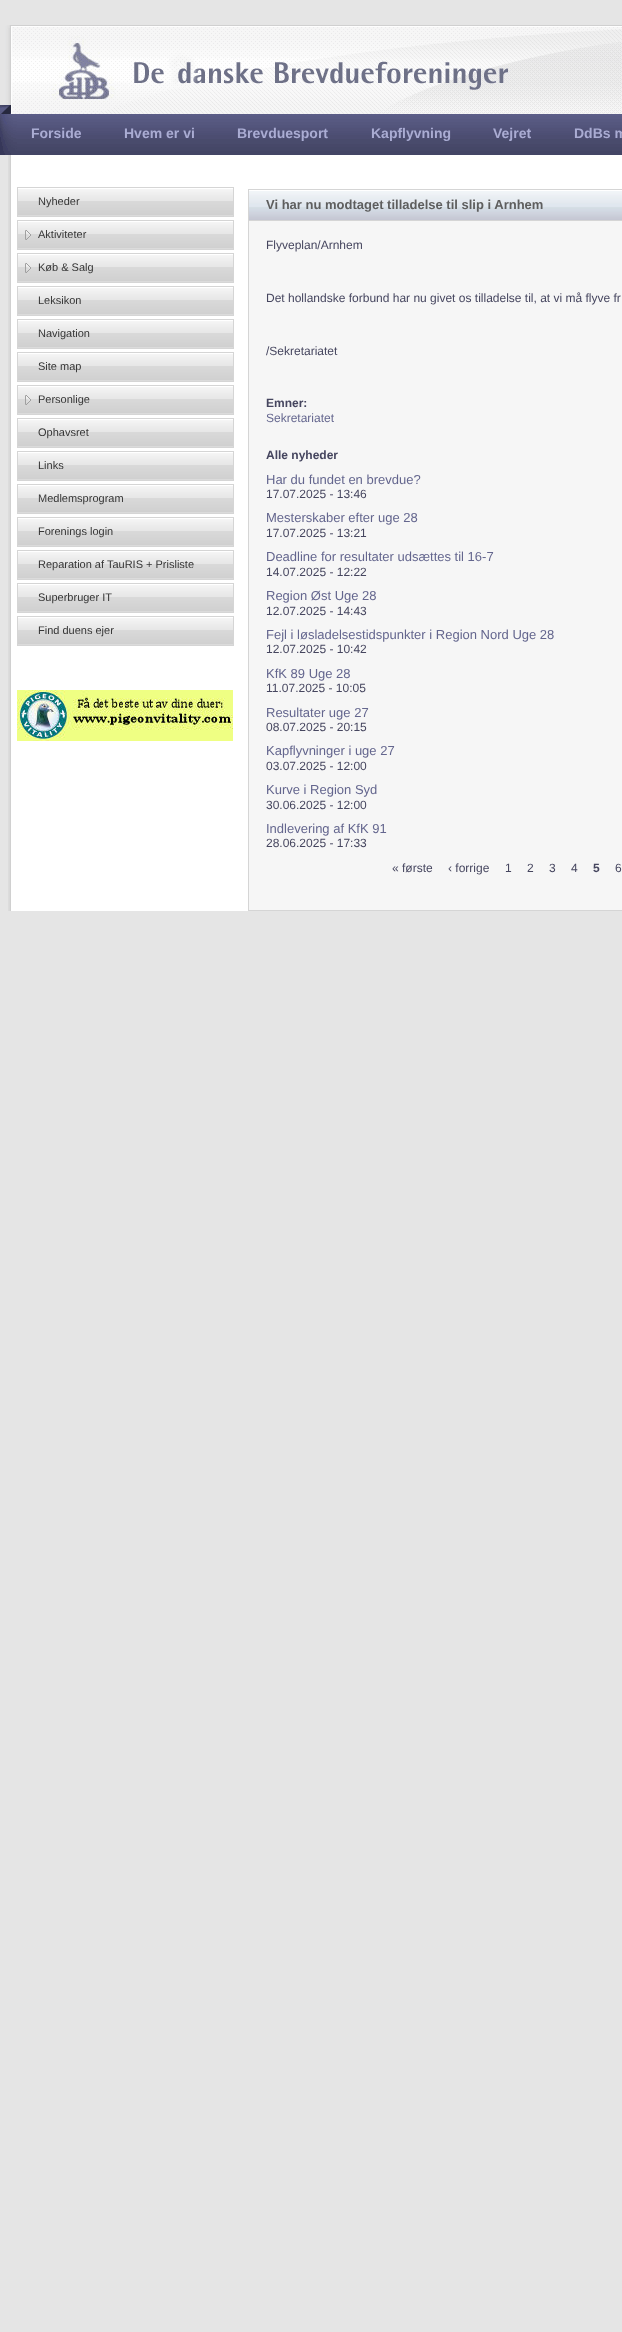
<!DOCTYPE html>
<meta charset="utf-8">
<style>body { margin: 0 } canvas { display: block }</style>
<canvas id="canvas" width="622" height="2332"></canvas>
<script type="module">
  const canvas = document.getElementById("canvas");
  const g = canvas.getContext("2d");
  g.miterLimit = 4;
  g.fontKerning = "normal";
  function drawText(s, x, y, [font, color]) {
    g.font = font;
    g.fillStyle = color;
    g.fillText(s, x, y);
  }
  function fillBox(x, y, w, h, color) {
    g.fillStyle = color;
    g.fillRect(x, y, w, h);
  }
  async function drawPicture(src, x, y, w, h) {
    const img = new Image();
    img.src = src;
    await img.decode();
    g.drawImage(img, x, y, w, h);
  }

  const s1 = ["bold 14px Liberation Sans", "#AAACD3"];
  const s2 = ["11px Liberation Sans", "#363636"];
  const s3 = ["bold 13px Liberation Sans", "#5E5E5E"];
  const s4 = ["12px Liberation Sans", "#46465F"];
  const s5 = ["bold 12px Liberation Sans", "#46465F"];
  const s6 = ["12px Liberation Sans", "#64668E"];
  const s7 = ["13px Liberation Sans", "#64668E"];

  fillBox(0, 0, 622, 2332, "#E5E5E5");
  await drawPicture("pic1.png", 0, 25, 622, 130);
  drawText("Forside", 31, 138, s1);
  drawText("Hvem er vi", 124, 138, s1);
  drawText("Brevduesport", 237, 138, s1);
  drawText("Kapflyvning", 371, 138, s1);
  drawText("Vejret", 493, 138, s1);
  drawText("DdBs m", 574, 138, s1);
  await drawPicture("pic2.png", 8, 155, 614, 756);
  await drawPicture("pic3.png", 18, 188, 215, 28);
  g.strokeStyle = "#D5D5D5";
  g.strokeRect(17.5, 187.5, 216, 29);
  drawText("Nyheder", 38, 205, s2);
  await drawPicture("pic4.png", 18, 221, 215, 28);
  g.strokeRect(17.5, 220.5, 216, 29);
  drawText("Aktiviteter", 38, 238, s2);
  await drawPicture("pic4.png", 18, 254, 215, 28);
  g.strokeRect(17.5, 253.5, 216, 29);
  drawText("Køb & Salg", 38, 271, s2);
  await drawPicture("pic3.png", 18, 287, 215, 28);
  g.strokeRect(17.5, 286.5, 216, 29);
  drawText("Leksikon", 38, 304, s2);
  await drawPicture("pic3.png", 18, 320, 215, 28);
  g.strokeRect(17.5, 319.5, 216, 29);
  drawText("Navigation", 38, 337, s2);
  await drawPicture("pic3.png", 18, 353, 215, 28);
  g.strokeRect(17.5, 352.5, 216, 29);
  drawText("Site map", 38, 370, s2);
  await drawPicture("pic4.png", 18, 386, 215, 28);
  g.strokeRect(17.5, 385.5, 216, 29);
  drawText("Personlige", 38, 403, s2);
  await drawPicture("pic3.png", 18, 419, 215, 28);
  g.strokeRect(17.5, 418.5, 216, 29);
  drawText("Ophavsret", 38, 436, s2);
  await drawPicture("pic3.png", 18, 452, 215, 28);
  g.strokeRect(17.5, 451.5, 216, 29);
  drawText("Links", 38, 469, s2);
  await drawPicture("pic3.png", 18, 485, 215, 28);
  g.strokeRect(17.5, 484.5, 216, 29);
  drawText("Medlemsprogram", 38, 502, s2);
  await drawPicture("pic3.png", 18, 518, 215, 28);
  g.strokeRect(17.5, 517.5, 216, 29);
  drawText("Forenings login", 38, 535, s2);
  await drawPicture("pic3.png", 18, 551, 215, 28);
  g.strokeRect(17.5, 550.5, 216, 29);
  drawText("Reparation af TauRIS + Prisliste", 38, 568, s2);
  await drawPicture("pic3.png", 18, 584, 215, 28);
  g.strokeRect(17.5, 583.5, 216, 29);
  drawText("Superbruger IT", 38, 601, s2);
  await drawPicture("pic3.png", 18, 617, 215, 28);
  g.strokeRect(17.5, 616.5, 216, 29);
  drawText("Find duens ejer", 38, 634, s2);
  await drawPicture("pic5.png", 17, 690, 216, 51);
  await drawPicture("pic6.png", 249, 190, 373, 30);
  g.strokeRect(248.5, 189.5, 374, 31);
  drawText("Vi har nu modtaget tilladelse til slip i Arnhem", 266, 209, s3);
  fillBox(249, 221, 373, 689, "#F6F6F6");
  fillBox(248, 910, 374, 1, "#D5D5D5");
  fillBox(248, 221, 1, 690, "#D5D5D5");
  drawText("Flyveplan/Arnhem", 266, 249, s4);
  drawText("Det hollandske forbund har nu givet os tilladelse til, at vi må flyve fr", 266, 302, s4);
  drawText("/Sekretariatet", 266, 355, s4);
  drawText("Emner:", 266, 407, s5);
  drawText("Sekretariatet", 266, 422, s6);
  drawText("Alle nyheder", 266, 459, s5);
  drawText("Har du fundet en brevdue?", 266, 484, s7);
  drawText("17.07.2025 - 13:46", 266, 498, s4);
  drawText("Mesterskaber efter uge 28", 266, 522, s7);
  drawText("17.07.2025 - 13:21", 266, 537, s4);
  drawText("Deadline for resultater udsættes til 16-7", 266, 561, s7);
  drawText("14.07.2025 - 12:22", 266, 576, s4);
  drawText("Region Øst Uge 28", 266, 600, s7);
  drawText("12.07.2025 - 14:43", 266, 615, s4);
  drawText("Fejl i løsladelsestidspunkter i Region Nord Uge 28", 266, 639, s7);
  drawText("12.07.2025 - 10:42", 266, 653, s4);
  drawText("KfK 89 Uge 28", 266, 678, s7);
  drawText("11.07.2025 - 10:05", 266, 692, s4);
  drawText("Resultater uge 27", 266, 717, s7);
  drawText("08.07.2025 - 20:15", 266, 731, s4);
  drawText("Kapflyvninger i uge 27", 266, 755, s7);
  drawText("03.07.2025 - 12:00", 266, 770, s4);
  drawText("Kurve i Region Syd", 266, 794, s7);
  drawText("30.06.2025 - 12:00", 266, 809, s4);
  drawText("Indlevering af KfK 91", 266, 833, s7);
  drawText("28.06.2025 - 17:33", 266, 847, s4);
  drawText("« første", 392, 872, s4);
  drawText("‹ forrige", 448, 872, s4);
  drawText("1", 505, 872, s4);
  drawText("2", 527, 872, s4);
  drawText("3", 549, 872, s4);
  drawText("4", 571, 872, s4);
  drawText("5", 593, 872, s5);
  drawText("6", 615, 872, s4);
</script>
